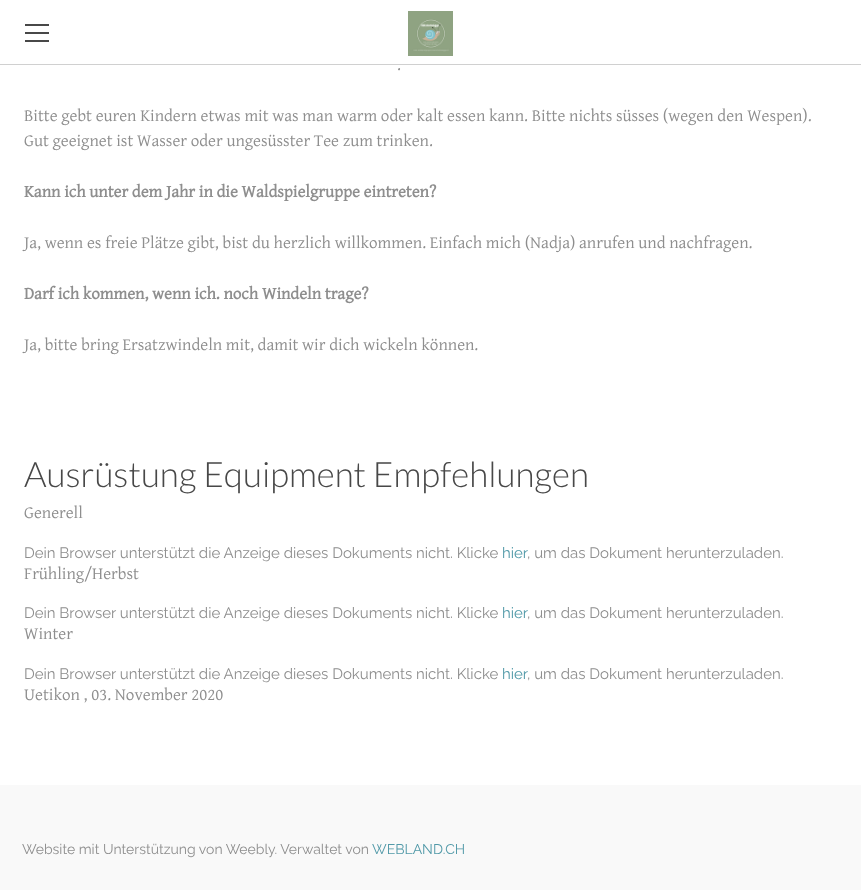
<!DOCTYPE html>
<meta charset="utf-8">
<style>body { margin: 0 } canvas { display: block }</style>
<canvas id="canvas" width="861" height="890"></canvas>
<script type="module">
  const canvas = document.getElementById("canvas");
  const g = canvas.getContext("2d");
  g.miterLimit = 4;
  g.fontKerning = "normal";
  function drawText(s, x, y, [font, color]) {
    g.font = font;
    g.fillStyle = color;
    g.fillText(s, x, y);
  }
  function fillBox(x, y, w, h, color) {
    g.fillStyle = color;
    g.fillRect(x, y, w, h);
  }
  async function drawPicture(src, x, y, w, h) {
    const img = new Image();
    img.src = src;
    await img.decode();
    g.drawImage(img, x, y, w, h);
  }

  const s1 = ["17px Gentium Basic", "#8E8E8E"];
  const s2 = ["bold 17px Gentium Basic", "#8E8E8E"];
  const s3 = ["300 35px Lato", "#484848"];
  const s4 = ["100 15px Raleway", "#8E8E8E"];
  const s5 = ["100 15px Raleway", "#5199A8"];
  const s6 = ["100 14px Raleway", "#8E8E8E"];
  const s7 = ["100 14px Raleway", "#5199A8"];

  fillBox(0, 0, 861, 890, "#F9F9F9");
  fillBox(0, 0, 861, 64, "#FFFFFF");
  fillBox(0, 64, 861, 1, "#D0D0D0");
  fillBox(25, 24, 24, 2, "#484848");
  fillBox(25, 32, 24, 2, "#484848");
  fillBox(25, 40, 24, 2, "#484848");
  await drawPicture("pic1.png", 408, 11, 45, 45);
  fillBox(0, 65, 861, 720, "#FFFFFF");
  drawText(".", 397, 70, s1);
  drawText("Bitte gebt euren Kindern etwas mit was man warm oder kalt essen kann. Bitte nichts süsses (wegen den Wespen).", 24, 121, s1);
  drawText("Gut geeignet ist Wasser oder ungesüsster Tee zum trinken.", 24, 146, s1);
  drawText("Kann ich unter dem Jahr in die Waldspielgruppe eintreten?", 24, 197, s2);
  drawText("Ja, wenn es freie Plätze gibt, bist du herzlich willkommen. Einfach mich (Nadja) anrufen und nachfragen.", 24, 248, s1);
  drawText("Darf ich kommen, wenn ich. noch Windeln trage?", 24, 299, s2);
  drawText("Ja, bitte bring Ersatzwindeln mit, damit wir dich wickeln können.", 24, 350, s1);
  drawText("Ausrüstung Equipment Empfehlungen", 24, 487, s3);
  drawText("Generell", 24, 518, s1);
  drawText("Dein Browser unterstützt die Anzeige dieses Dokuments nicht. Klicke", 24, 558, s4);
  drawText("hier", 502, 558, s5);
  drawText(", um das Dokument herunterzuladen.", 527, 558, s4);
  drawText("Frühling/Herbst", 24, 579, s1);
  drawText("Dein Browser unterstützt die Anzeige dieses Dokuments nicht. Klicke", 24, 618, s4);
  drawText("hier", 502, 618, s5);
  drawText(", um das Dokument herunterzuladen.", 527, 618, s4);
  drawText("Winter", 24, 639, s1);
  drawText("Dein Browser unterstützt die Anzeige dieses Dokuments nicht. Klicke", 24, 679, s4);
  drawText("hier", 502, 679, s5);
  drawText(", um das Dokument herunterzuladen.", 527, 679, s4);
  drawText("Uetikon , 03. November 2020", 24, 700, s1);
  drawText("Website mit Unterstützung von Weebly. Verwaltet von", 22, 854, s6);
  drawText("WEBLAND.CH", 372, 854, s7);
</script>
